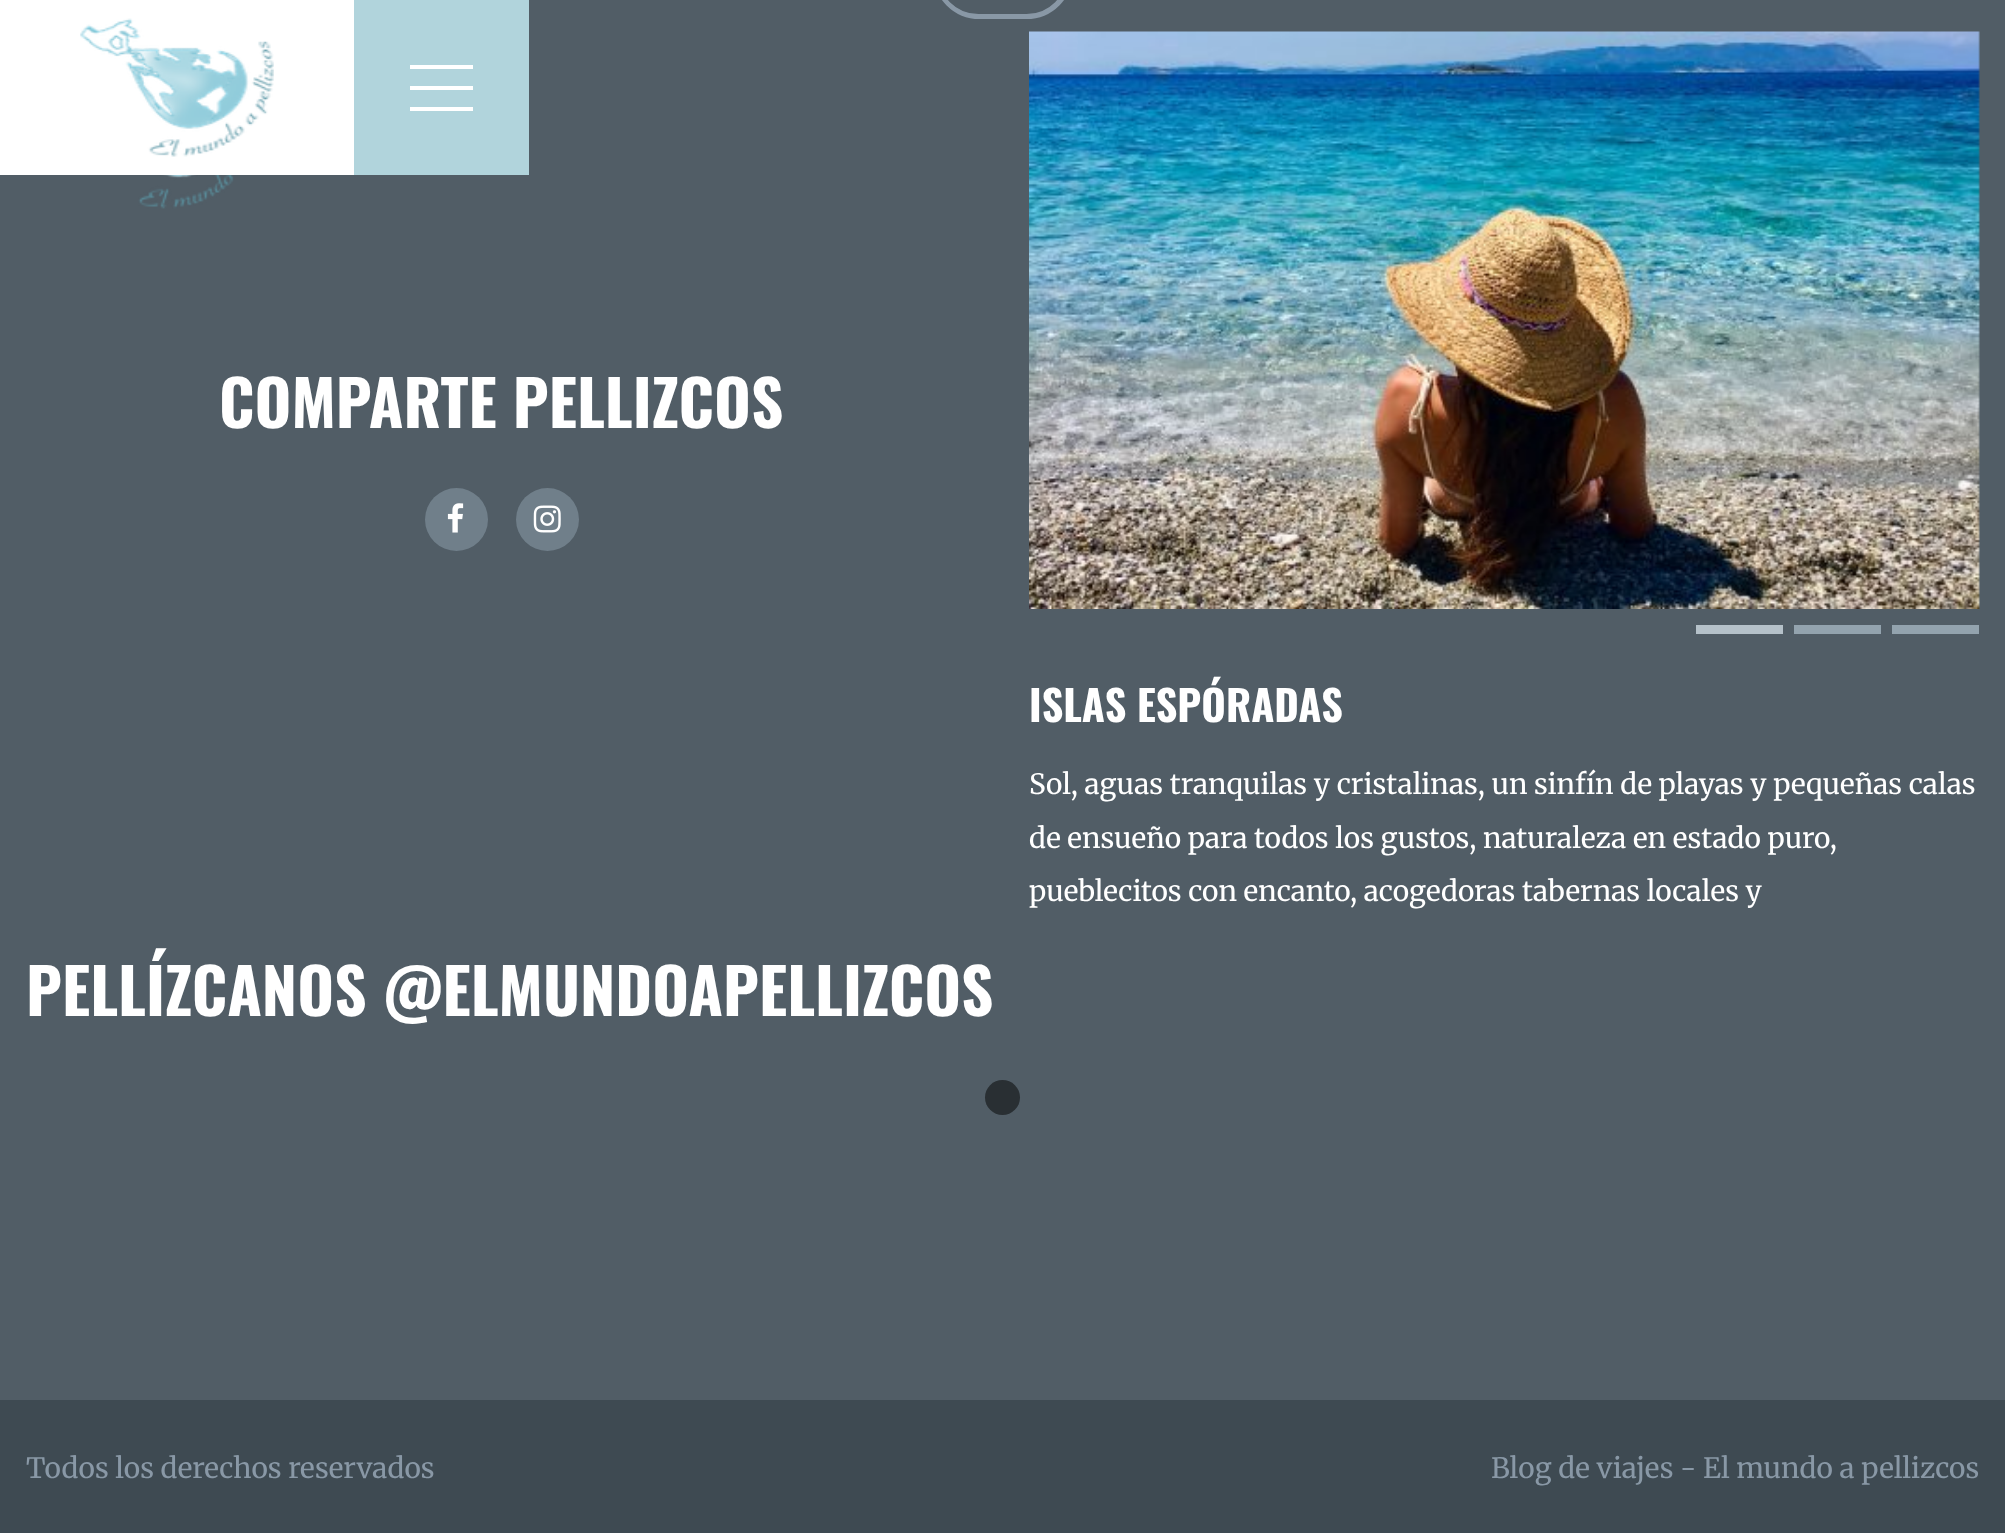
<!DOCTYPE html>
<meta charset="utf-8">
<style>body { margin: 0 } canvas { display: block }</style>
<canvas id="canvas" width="2005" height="1533"></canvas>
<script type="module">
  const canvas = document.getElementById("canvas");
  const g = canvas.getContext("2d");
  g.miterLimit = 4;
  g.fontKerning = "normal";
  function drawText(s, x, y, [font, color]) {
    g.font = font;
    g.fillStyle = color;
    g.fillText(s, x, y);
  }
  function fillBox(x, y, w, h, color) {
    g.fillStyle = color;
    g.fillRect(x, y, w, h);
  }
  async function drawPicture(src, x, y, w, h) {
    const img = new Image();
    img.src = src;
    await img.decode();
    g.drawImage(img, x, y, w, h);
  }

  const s1 = ["bold 63px Oswald", "#FFFFFF"];
  const s2 = ["bold 42px Oswald", "#FFFFFF"];
  const s3 = ["28px Merriweather", "#FFFFFF"];
  const s4 = ["28px Merriweather", "#8998A6"];

  fillBox(0, 0, 2005, 1533, "#515D66");
  fillBox(0, 0, 354, 175, "#FFFFFF");
  await drawPicture("pic1.png", 80, 18, 194, 139);
  fillBox(354, 0, 175, 175, "#B1D4DC");
  fillBox(410, 86, 63, 4, "#FFFFFF");
  fillBox(410, 65, 63, 4, "#FFFFFF");
  fillBox(410, 107, 63, 4, "#FFFFFF");
  g.beginPath();
  g.roundRect(937, -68, 131, 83, 65.5);
  g.strokeStyle = "#8998A6";
  g.lineWidth = 2;
  g.stroke();
  g.beginPath();
  g.roundRect(935, -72, 136, 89, 68);
  g.lineWidth = 4;
  g.stroke();
  await drawPicture("pic2.png", 138, 175, 96, 34);
  drawText("COMPARTE PELLIZCOS", 219, 428, s1);
  g.fillStyle = "#707F8A";
  g.beginPath();
  g.arc(456.5, 519.5, 31.5, 0, Math.PI * 2);
  g.fill();
  await drawPicture("pic3.png", 447, 503, 17, 30);
  g.beginPath();
  g.arc(547.5, 519.5, 31.5, 0, Math.PI * 2);
  g.fill();
  await drawPicture("pic4.png", 533, 505, 28, 28);
  fillBox(1696, 625, 87, 9, "#B5C1C9");
  fillBox(1794, 625, 87, 9, "#93A3AE");
  fillBox(1892, 625, 87, 9, "#93A3AE");
  await drawPicture("pic5.png", 1029, 31, 951, 578);
  drawText("ISLAS ESPÓRADAS", 1029, 722, s2);
  drawText("Sol, aguas tranquilas y cristalinas, un sinfín de playas y pequeñas calas", 1029, 794, s3);
  drawText("de ensueño para todos los gustos, naturaleza en estado puro,", 1029, 848, s3);
  drawText("pueblecitos con encanto, acogedoras tabernas locales y", 1029, 901, s3);
  drawText("PELLÍZCANOS @ELMUNDOAPELLIZCOS", 26, 1016, s1);
  g.fillStyle = "#292F33";
  g.beginPath();
  g.arc(1002.5, 1097.5, 17.5, 0, Math.PI * 2);
  g.fill();
  fillBox(0, 1400, 2005, 133, "#3E4A52");
  drawText("Todos los derechos reservados", 26, 1478, s4);
  drawText("Blog de viajes - El mundo a pellizcos", 1491, 1478, s4);
</script>
